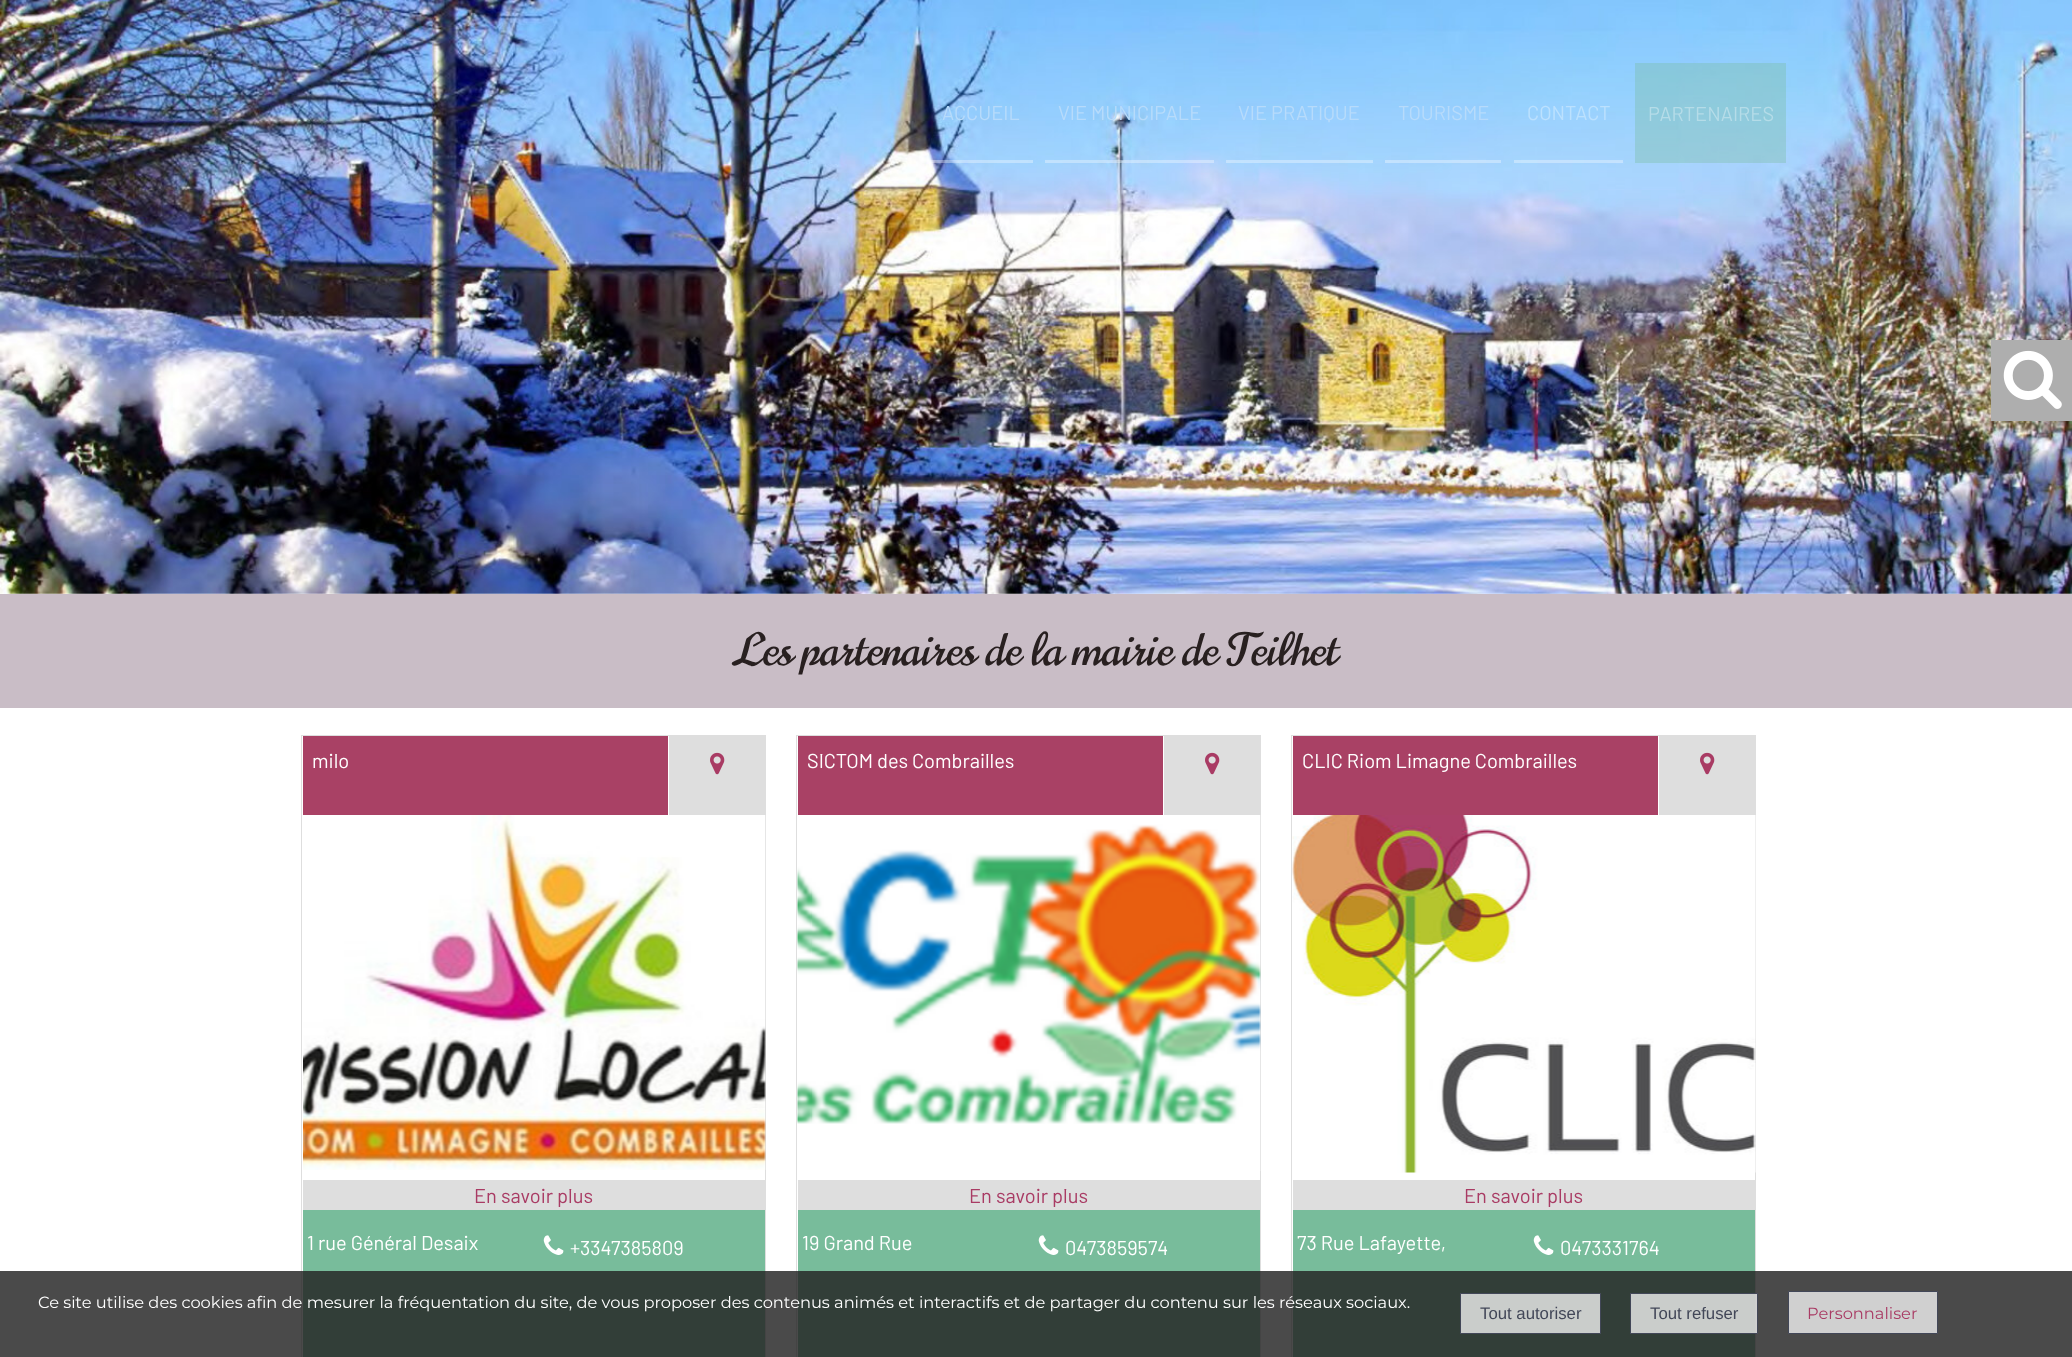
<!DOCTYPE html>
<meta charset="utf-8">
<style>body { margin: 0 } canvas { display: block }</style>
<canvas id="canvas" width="2072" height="1357"></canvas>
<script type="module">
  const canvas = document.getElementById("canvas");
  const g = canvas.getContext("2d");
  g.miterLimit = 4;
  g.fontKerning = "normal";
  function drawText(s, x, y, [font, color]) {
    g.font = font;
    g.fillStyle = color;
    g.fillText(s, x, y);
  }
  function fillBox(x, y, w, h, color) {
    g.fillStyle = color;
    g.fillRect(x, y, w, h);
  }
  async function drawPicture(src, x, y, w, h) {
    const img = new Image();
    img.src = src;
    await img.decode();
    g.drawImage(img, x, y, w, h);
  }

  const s1 = ["20px Barlow", "#B7DBFB"];
  const s2 = ["20px Barlow", "#BCE1FE"];
  const s3 = ["20px Barlow", "#B5DCE8"];
  const s4 = ["45px Norican", "#282020"];
  const s5 = ["20px Barlow", "#FFFFFF"];
  const s6 = ["20px Barlow", "#A93B64"];
  const s7 = ["16.25px Montserrat", "#FFFFFF"];
  const s8 = ["16.75px Liberation Sans", "#424758"];
  const s9 = ["16.25px Montserrat", "#A93B64"];

  fillBox(0, 0, 2072, 1357, "#FFFFFF");
  await drawPicture("pic1.png", 0, 0, 2072, 594);
  fillBox(930, 160, 103, 3, "rgba(255, 255, 255, 0.34)");
  drawText("ACCUEIL", 942, 120, s1);
  fillBox(1045, 160, 169, 3, "rgba(255, 255, 255, 0.34)");
  drawText("VIE MUNICIPALE", 1058, 120, s1);
  fillBox(1226, 160, 147, 3, "rgba(255, 255, 255, 0.34)");
  drawText("VIE PRATIQUE", 1238, 120, s1);
  fillBox(1385, 160, 116, 3, "rgba(255, 255, 255, 0.34)");
  drawText("TOURISME", 1398, 120, s1);
  fillBox(1514, 160, 109, 3, "rgba(255, 255, 255, 0.34)");
  drawText("CONTACT", 1527, 120, s2);
  fillBox(1635, 63, 151, 100, "rgba(120, 188, 155, 0.34)");
  drawText("PARTENAIRES", 1648, 121, s3);
  fillBox(1991, 340, 81, 81, "#AEAEAE");
  await drawPicture("pic2.png", 2003, 350, 59, 59);
  fillBox(0, 594, 2072, 114, "#C9BDC6");
  drawText("Les partenaires de la mairie de Teilhet", 735, 665, s4);
  g.strokeStyle = "#DEDEDE";
  g.strokeRect(301.5, 735.5, 464, 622);
  fillBox(303, 736, 365, 79, "#A94165");
  drawText("milo", 312, 768, s5);
  fillBox(669, 736, 96, 79, "#DEDEDE");
  await drawPicture("pic3.png", 710, 752, 15, 23);
  await drawPicture("pic4.png", 303, 815, 463, 355);
  fillBox(303, 1180, 462, 30, "#DEDEDE");
  drawText("En savoir plus", 474, 1203, s6);
  fillBox(303, 1210, 462, 147, "#78BC9B");
  drawText("1 rue Général Desaix", 307, 1250, s5);
  await drawPicture("pic5.png", 543, 1235, 21, 20);
  drawText("+3347385809", 570, 1255, s5);
  g.strokeRect(796.5, 735.5, 464, 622);
  fillBox(798, 736, 365, 79, "#A94165");
  drawText("SICTOM des Combrailles", 807, 768, s5);
  fillBox(1164, 736, 96, 79, "#DEDEDE");
  await drawPicture("pic3.png", 1205, 752, 15, 23);
  await drawPicture("pic6.png", 797, 815, 464, 356);
  fillBox(798, 1180, 462, 30, "#DEDEDE");
  drawText("En savoir plus", 969, 1203, s6);
  fillBox(798, 1210, 462, 147, "#78BC9B");
  drawText("19 Grand Rue", 802, 1250, s5);
  await drawPicture("pic5.png", 1038, 1235, 21, 20);
  drawText("0473859574", 1065, 1255, s5);
  g.strokeRect(1291.5, 735.5, 464, 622);
  fillBox(1293, 736, 365, 79, "#A94165");
  drawText("CLIC Riom Limagne Combrailles", 1302, 768, s5);
  fillBox(1659, 736, 96, 79, "#DEDEDE");
  await drawPicture("pic3.png", 1700, 752, 15, 23);
  await drawPicture("pic7.png", 1292, 815, 464, 358);
  fillBox(1293, 1180, 462, 30, "#DEDEDE");
  drawText("En savoir plus", 1464, 1203, s6);
  fillBox(1293, 1210, 462, 147, "#78BC9B");
  drawText("73 Rue Lafayette,", 1297, 1250, s5);
  await drawPicture("pic5.png", 1533, 1235, 21, 20);
  drawText("0473331764", 1560, 1255, s5);
  fillBox(0, 1271, 2072, 86, "rgba(34, 34, 34, 0.82)");
  drawText("Ce site utilise des cookies afin de mesurer la fréquentation du site, de vous proposer des contenus animés et interactifs et de partager du contenu sur les réseaux sociaux.", 38, 1308, s7);
  g.fillStyle = "#CACDCB";
  g.beginPath();
  g.rect(1460.5, 1293.5, 140, 40);
  g.fill();
  g.strokeStyle = "#424758";
  g.stroke();
  drawText("Tout autoriser", 1480, 1319, s8);
  g.fillStyle = "rgba(255, 255, 255, 0.74)";
  g.beginPath();
  g.rect(1630.5, 1293.5, 127, 40);
  g.fill();
  g.stroke();
  drawText("Tout refuser", 1650, 1319, s8);
  g.fillStyle = "#D0D0D0";
  g.beginPath();
  g.rect(1788.5, 1291.5, 149, 42);
  g.fill();
  g.stroke();
  drawText("Personnaliser", 1807, 1319, s9);
</script>
